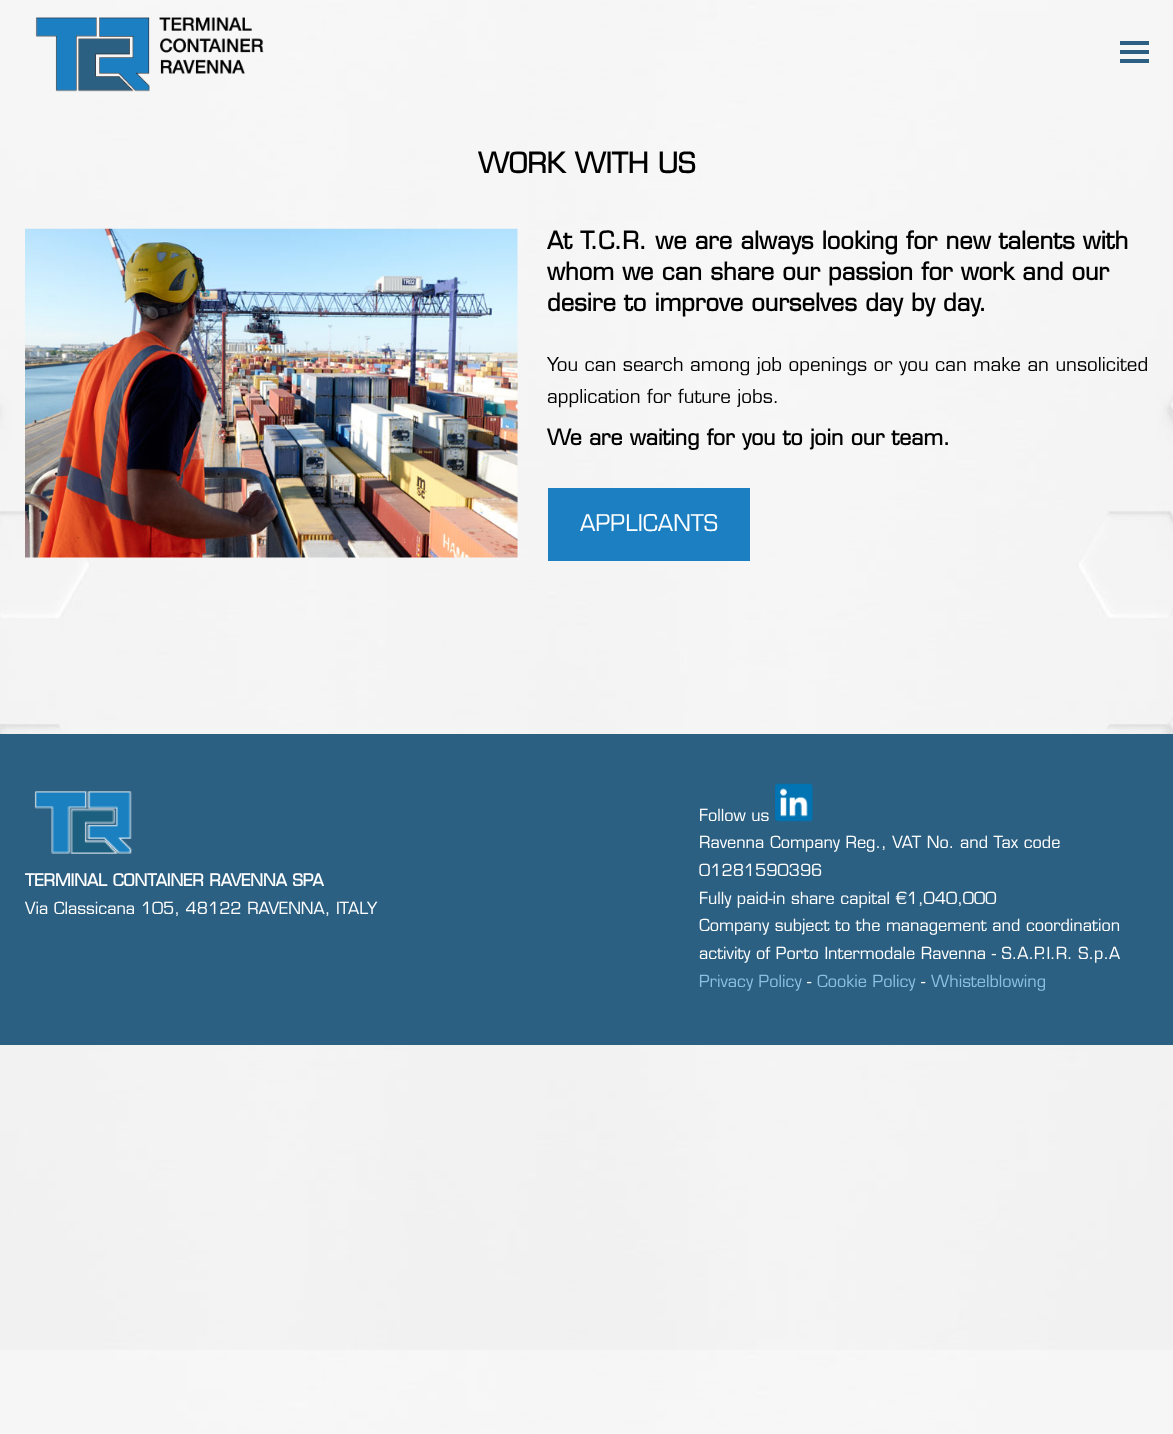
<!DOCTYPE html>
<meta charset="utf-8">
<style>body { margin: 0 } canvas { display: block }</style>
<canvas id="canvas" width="1173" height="1434"></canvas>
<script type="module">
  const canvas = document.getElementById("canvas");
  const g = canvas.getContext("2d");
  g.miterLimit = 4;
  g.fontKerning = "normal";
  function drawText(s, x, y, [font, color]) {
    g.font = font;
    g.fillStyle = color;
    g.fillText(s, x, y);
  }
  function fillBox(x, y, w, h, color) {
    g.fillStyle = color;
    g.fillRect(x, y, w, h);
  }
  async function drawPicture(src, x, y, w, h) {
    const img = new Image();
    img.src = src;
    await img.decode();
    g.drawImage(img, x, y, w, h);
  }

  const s1 = ["bold 27.5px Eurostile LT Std", "#000000"];
  const s2 = ["bold 23.75px Eurostile LT Std", "#000000"];
  const s3 = ["18.75px Eurostile LT Std", "#000000"];
  const s4 = ["bold 21.25px Eurostile LT Std", "#000000"];
  const s5 = ["22.5px Eurostile LT Std", "#FFFFFF"];
  const s6 = ["bold 16.25px Eurostile LT Std", "#FFFFFF"];
  const s7 = ["16.25px Eurostile LT Std", "#FFFFFF"];
  const s8 = ["16.25px Eurostile LT Std", "#8DBFE0"];

  fillBox(0, 0, 1173, 1434, "#FFFFFF");
  await drawPicture("pic1.png", 0, 0, 1173, 1434);
  await drawPicture("pic2.png", 35, 17, 229, 75);
  fillBox(1120, 41, 29, 4, "#2C6083");
  fillBox(1120, 50, 29, 4, "#2C6083");
  fillBox(1120, 59, 29, 4, "#2C6083");
  drawText("WORK WITH US", 478, 173, s1);
  await drawPicture("pic3.png", 25, 228, 493, 330);
  drawText("At T.C.R. we are always looking for new talents with", 547, 249, s2);
  drawText("whom we can share our passion for work and our", 547, 280, s2);
  drawText("desire to improve ourselves day by day.", 547, 311, s2);
  drawText("You can search among job openings or you can make an unsolicited", 547, 371, s3);
  drawText("application for future jobs.", 547, 403, s3);
  drawText("We are waiting for you to join our team.", 547, 445, s4);
  fillBox(548, 488, 202, 73, "#1B7FC2");
  drawText("APPLICANTS", 580, 531, s5);
  fillBox(0, 734, 1173, 311, "#2C6083");
  await drawPicture("pic4.png", 34, 791, 98, 63);
  drawText("TERMINAL CONTAINER RAVENNA SPA", 25, 886, s6);
  drawText("Via Classicana 105, 48122 RAVENNA, ITALY", 25, 914, s7);
  drawText("Follow us", 699, 821, s7);
  await drawPicture("pic5.png", 775, 783, 38, 39);
  drawText("Ravenna Company Reg., VAT No. and Tax code", 699, 848, s7);
  drawText("01281590396", 699, 876, s7);
  drawText("Fully paid-in share capital €1,040,000", 699, 904, s7);
  drawText("Company subject to the management and coordination", 699, 931, s7);
  drawText("activity of Porto Intermodale Ravenna - S.A.P.I.R. S.p.A", 699, 959, s7);
  drawText("Privacy Policy", 699, 987, s8);
  drawText("-", 807, 987, s7);
  drawText("Cookie Policy", 817, 987, s8);
  drawText("-", 921, 987, s7);
  drawText("Whistelblowing", 931, 987, s8);
</script>
